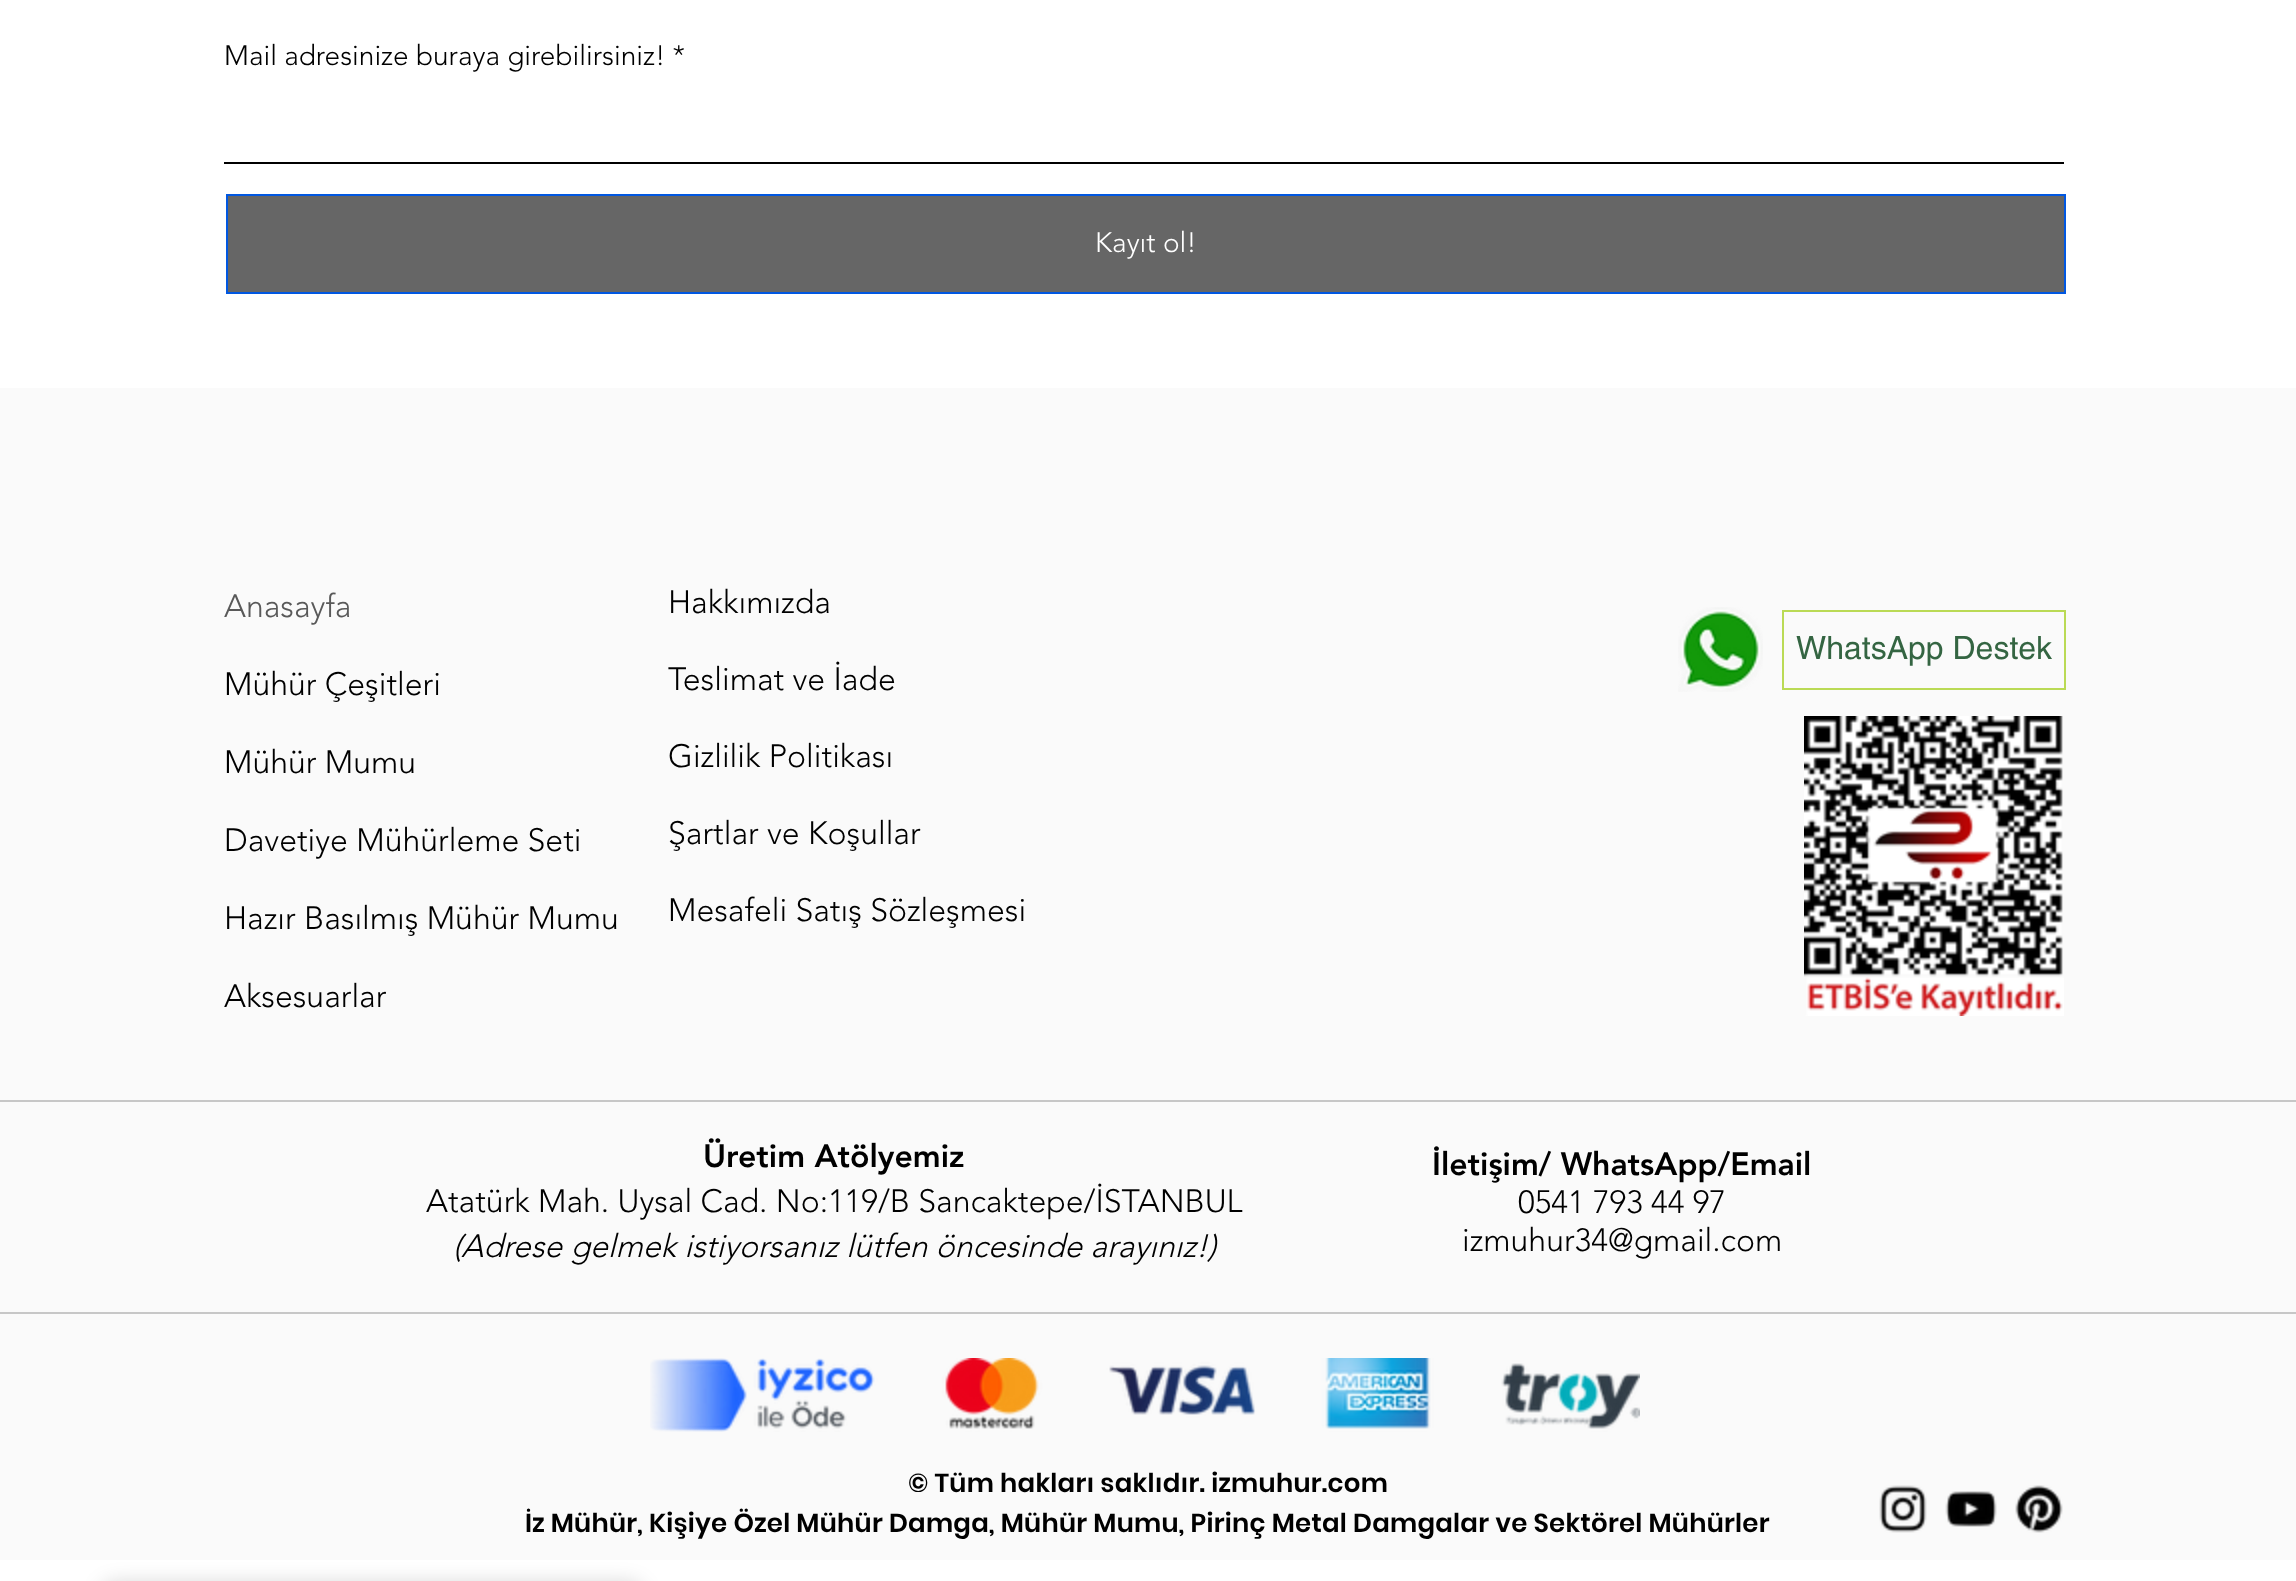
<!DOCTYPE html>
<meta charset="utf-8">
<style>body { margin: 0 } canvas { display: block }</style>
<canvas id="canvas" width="2296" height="1581"></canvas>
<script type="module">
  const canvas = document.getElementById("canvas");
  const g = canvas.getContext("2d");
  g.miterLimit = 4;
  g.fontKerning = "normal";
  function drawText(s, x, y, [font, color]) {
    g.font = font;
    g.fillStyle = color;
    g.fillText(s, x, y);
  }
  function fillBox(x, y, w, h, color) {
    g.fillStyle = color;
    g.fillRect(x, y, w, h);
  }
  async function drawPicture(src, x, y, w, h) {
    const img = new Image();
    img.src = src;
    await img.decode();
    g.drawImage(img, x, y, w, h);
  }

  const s1 = ["300 28px 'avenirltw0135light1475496'", "#000000"];
  const s2 = ["300 28px 'avenirltw0135light1475496'", "#FFFFFF"];
  const s3 = ["300 32px 'avenirltw0135light1475496'", "#595959"];
  const s4 = ["300 32px 'avenirltw0135light1475496'", "#000000"];
  const s5 = ["32px helvetica", "#346542"];
  const s6 = ["900 32px 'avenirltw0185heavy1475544'", "#000000"];
  const s7 = ["italic 300 32px 'avenirltw0135light1475496'", "#000000"];
  const s8 = ["600 26px Poppins", "#000000"];

  fillBox(0, 0, 2296, 1581, "#FFFFFF");
  drawText("Mail adresinize buraya girebilirsiniz! *", 224, 65, s1);
  fillBox(224, 162, 1840, 2, "#000000");
  g.fillStyle = "#666666";
  g.beginPath();
  g.rect(227, 195, 1838, 98);
  g.fill();
  g.strokeStyle = "#0057E1";
  g.lineWidth = 2;
  g.stroke();
  drawText("Kayıt ol!", 1095, 252, s2);
  fillBox(0, 388, 2296, 1172, "#FAFAFA");
  drawText("Anasayfa", 224, 617, s3);
  drawText("Mühür Çeşitleri", 224, 695, s4);
  drawText("Mühür Mumu", 224, 773, s4);
  drawText("Davetiye Mühürleme Seti", 224, 851, s4);
  drawText("Hazır Basılmış Mühür Mumu", 224, 929, s4);
  drawText("Aksesuarlar", 224, 1007, s4);
  drawText("Hakkımızda", 668, 613, s4);
  drawText("Teslimat ve İade", 668, 690, s4);
  drawText("Gizlilik Politikası", 668, 767, s4);
  drawText("Şartlar ve Koşullar", 668, 844, s4);
  drawText("Mesafeli Satış Sözleşmesi", 668, 921, s4);
  await drawPicture("pic1.png", 1678, 607, 85, 85);
  g.strokeStyle = "#BADA55";
  g.strokeRect(1783, 611, 282, 78);
  drawText("WhatsApp Destek", 1796, 659, s5);
  await drawPicture("pic2.png", 1804, 716, 260, 300);
  fillBox(0, 1100, 2296, 2, "#C7C7C7");
  drawText("Üretim Atölyemiz", 703, 1167, s6);
  drawText("Atatürk Mah. Uysal Cad. No:119/B Sancaktepe/İSTANBUL", 426, 1212, s4);
  drawText("(Adrese gelmek istiyorsanız lütfen öncesinde arayınız!)", 453, 1257, s7);
  drawText("İletişim/ WhatsApp/Email", 1432, 1175, s6);
  drawText("0541 793 44 97", 1518, 1213, s4);
  drawText("izmuhur34@gmail.com", 1462, 1251, s4);
  fillBox(0, 1312, 2296, 2, "#C7C7C7");
  await drawPicture("pic3.png", 650, 1358, 990, 74);
  g.letterSpacing = "0.25px";
  drawText("© Tüm hakları saklıdır. izmuhur.com", 908, 1492, s8);
  drawText("İz Mühür, Kişiye Özel Mühür Damga, Mühür Mumu, Pirinç Metal Damgalar ve Sektörel Mühürler", 525, 1532, s8);
  await drawPicture("pic4.png", 1879, 1485, 48, 48);
  await drawPicture("pic5.png", 1945, 1491, 52, 36);
  await drawPicture("pic6.png", 2015, 1485, 48, 48);
  g.fillStyle = "rgba(0, 0, 0, 0.15)";
  g.filter = "blur(10px)";
  g.beginPath();
  g.roundRect(100, 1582, 544, 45, 16);
  g.fill();
  g.filter = "none";
</script>
